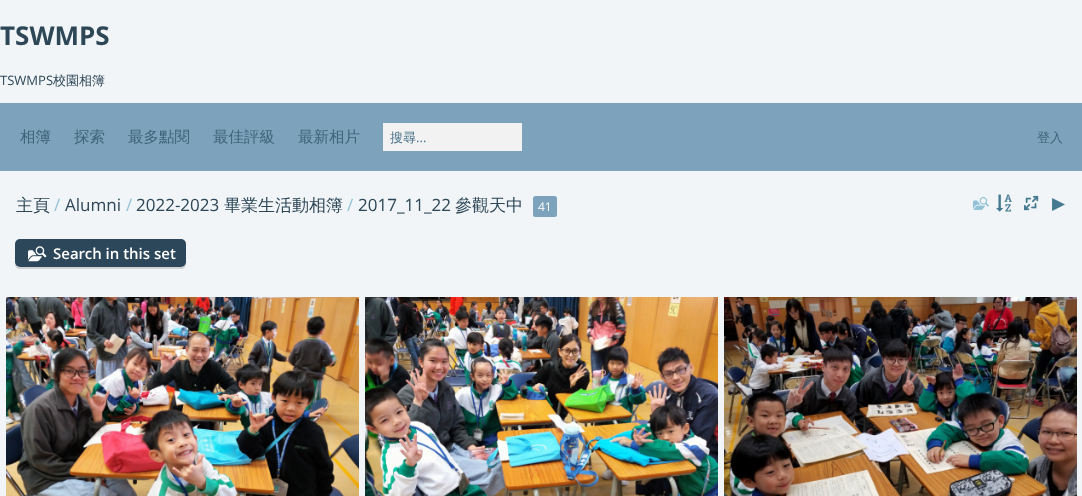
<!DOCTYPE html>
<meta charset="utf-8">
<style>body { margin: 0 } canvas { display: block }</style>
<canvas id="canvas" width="1082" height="496"></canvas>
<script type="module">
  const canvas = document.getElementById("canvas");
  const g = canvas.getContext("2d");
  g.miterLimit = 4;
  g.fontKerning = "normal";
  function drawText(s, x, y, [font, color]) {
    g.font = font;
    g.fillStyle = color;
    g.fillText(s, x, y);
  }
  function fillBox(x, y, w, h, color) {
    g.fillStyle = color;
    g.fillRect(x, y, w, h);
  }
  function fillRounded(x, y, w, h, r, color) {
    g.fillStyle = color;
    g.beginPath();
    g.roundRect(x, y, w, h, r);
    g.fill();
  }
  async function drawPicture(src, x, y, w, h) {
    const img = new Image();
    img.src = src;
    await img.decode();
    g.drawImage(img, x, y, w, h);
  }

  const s1 = ["bold 26px Open Sans", "#2E4756"];
  const s2 = ["13px Open Sans", "#2E4756"];
  const s3 = ["500 13px WenQuanYi Zen Hei", "#2E4756"];
  const s4 = ["500 15.5px WenQuanYi Zen Hei", "#3F6379"];
  const s5 = ["500 13px WenQuanYi Zen Hei", "#48718A"];
  const s6 = ["13px Open Sans", "#48718A"];
  const s7 = ["500 13px WenQuanYi Zen Hei", "#3F6379"];
  const s8 = ["500 17px WenQuanYi Zen Hei", "#2E4756"];
  const s9 = ["17px Open Sans", "#93C2D6"];
  const s10 = ["17px Open Sans", "#2E4756"];
  const s11 = ["12px Open Sans", "#FFFFFF"];
  const s12 = ["17px DejaVu Sans", "#457A90"];
  const s13 = ["600 15px Open Sans", "#FFFFFF"];

  fillBox(0, 0, 1082, 496, "#F1F5F8");
  drawText("TSWMPS", 0, 45, s1);
  drawText("TSWMPS", 0, 85, s2);
  drawText("校園相簿", 53, 85, s3);
  fillBox(0, 103, 1082, 68, "#7CA2BC");
  drawText("相簿", 20, 142, s4);
  drawText("探索", 74, 142, s4);
  drawText("最多點閱", 128, 142, s4);
  drawText("最佳評級", 213, 142, s4);
  drawText("最新相片", 298, 142, s4);
  fillBox(383, 123, 139, 28, "#F2F2F2");
  drawText("搜尋", 390, 142, s5);
  drawText("...", 416, 142, s6);
  drawText("登入", 1037, 142, s7);
  drawText("主頁", 16, 211, s8);
  drawText("/", 54, 211, s9);
  drawText("Alumni", 65, 211, s10);
  drawText("/", 126, 211, s9);
  drawText("2022-2023", 136, 211, s10);
  drawText("畢業生活動相簿", 224, 211, s8);
  drawText("/", 347, 211, s9);
  drawText("2017_11_22", 358, 211, s10);
  drawText("參觀天中", 455, 211, s8);
  fillBox(538, 196, 14, 21, "#7CA2BC");
  drawText("41", 538, 211, s11);
  g.fillStyle = "#7CA2BC";
  g.beginPath();
  g.roundRect(533, 196, 5, 21, [2.5, 0, 0, 2.5]);
  g.fill();
  g.beginPath();
  g.roundRect(552, 196, 5, 21, [0, 2.5, 2.5, 0]);
  g.fill();
  await drawPicture("pic1.png", 973, 197, 16, 13);
  await drawPicture("pic2.png", 996, 194, 16, 18);
  await drawPicture("pic3.png", 1024, 195, 15, 16);
  drawText("▶", 1052, 209, s12);
  g.fillStyle = "#CFD3D5";
  g.beginPath();
  g.moveTo(15, 262);
  g.lineTo(15, 264);
  g.bezierCurveTo(15, 267, 17, 269, 20, 269);
  g.lineTo(181, 269);
  g.bezierCurveTo(184, 269, 186, 267, 186, 264);
  g.lineTo(186, 262);
  g.bezierCurveTo(186, 265, 184, 267, 181, 267);
  g.lineTo(20, 267);
  g.bezierCurveTo(17, 267, 15, 265, 15, 262);
  g.closePath();
  g.fill();
  fillRounded(15, 239, 171, 28, 5, "#2C465A");
  await drawPicture("pic4.png", 28, 246, 19, 16);
  drawText("Search in this set", 53, 259, s13);
  await drawPicture("pic5.png", 6, 297, 353, 199);
  await drawPicture("pic6.png", 365, 297, 353, 199);
  await drawPicture("pic7.png", 724, 297, 353, 199);
</script>
